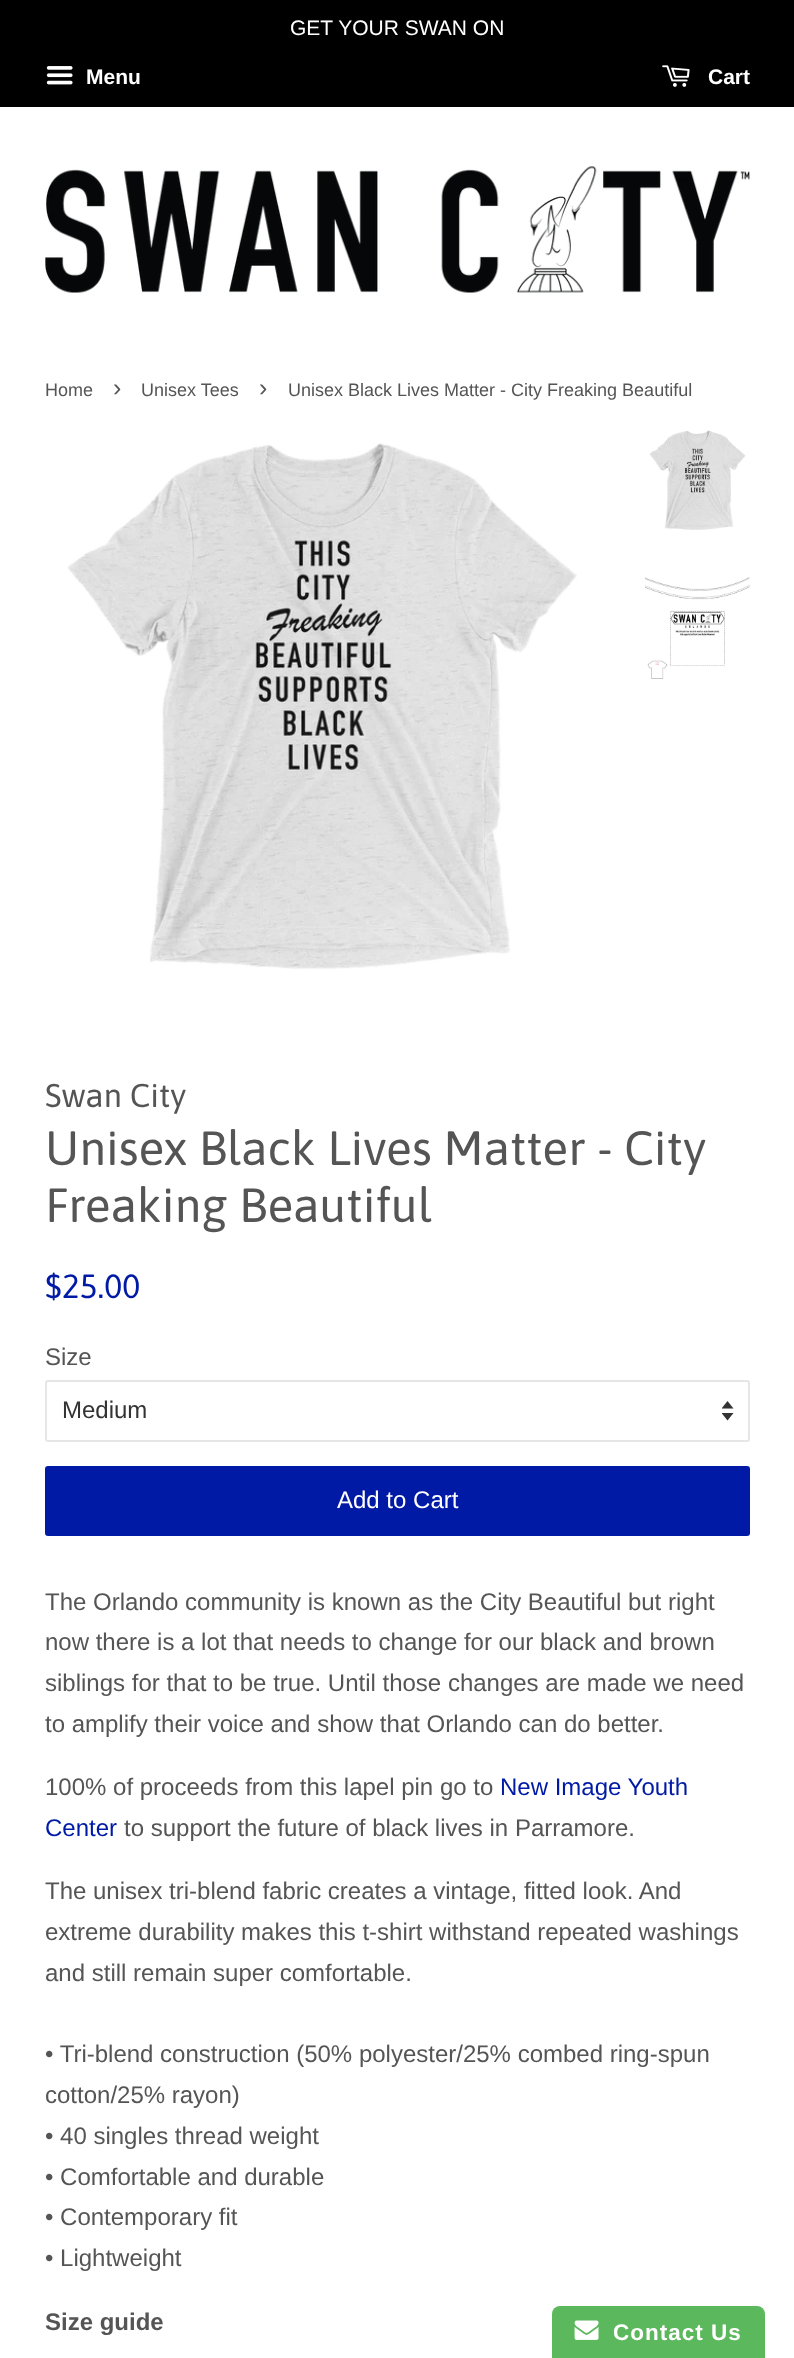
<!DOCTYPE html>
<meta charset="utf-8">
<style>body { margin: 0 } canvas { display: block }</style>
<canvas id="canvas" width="794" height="2358"></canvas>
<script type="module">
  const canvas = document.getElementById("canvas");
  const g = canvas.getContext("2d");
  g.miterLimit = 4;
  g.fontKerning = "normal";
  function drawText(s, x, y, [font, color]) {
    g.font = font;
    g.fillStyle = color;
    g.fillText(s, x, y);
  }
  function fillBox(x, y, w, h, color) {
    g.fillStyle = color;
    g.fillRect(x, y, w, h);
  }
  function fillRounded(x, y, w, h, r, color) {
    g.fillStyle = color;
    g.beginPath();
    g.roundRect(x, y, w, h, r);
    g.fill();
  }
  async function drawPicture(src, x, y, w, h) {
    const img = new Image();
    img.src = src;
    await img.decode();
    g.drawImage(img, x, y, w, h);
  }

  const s1 = ["21px Liberation Sans", "#FFFFFF"];
  const s2 = ["bold 21px Liberation Sans", "#FFFFFF"];
  const s3 = ["18px Liberation Sans", "#555555"];
  const s4 = ["25px Liberation Sans", "#555555"];
  const s5 = ["33px Asap", "#555555"];
  const s6 = ["48px Asap", "#555555"];
  const s7 = ["33.5px Asap", "#001AA5"];
  const s8 = ["24px Liberation Sans", "#555555"];
  const s9 = ["24px Liberation Sans", "#333333"];
  const s10 = ["24px Liberation Sans", "#FFFFFF"];
  const s11 = ["24px Liberation Sans", "#001AA5"];
  const s12 = ["bold 24px Liberation Sans", "#555555"];
  const s13 = ["bold 22.5px Liberation Sans", "#FFFFFF"];

  fillBox(0, 0, 794, 2358, "#FFFFFF");
  fillBox(0, 0, 794, 107, "#000000");
  drawText("GET YOUR SWAN ON", 290, 35, s1);
  await drawPicture("pic1.png", 46, 66, 27, 19);
  drawText("Menu", 86, 84, s2);
  await drawPicture("pic2.png", 662, 65, 28, 22);
  drawText("Cart", 708, 84, s2);
  await drawPicture("pic3.png", 45, 166, 705, 127);
  drawText("Home", 45, 396, s3);
  drawText("›", 113, 396, s4);
  drawText("Unisex Tees", 141, 396, s3);
  drawText("›", 259, 396, s4);
  drawText("Unisex Black Lives Matter - City Freaking Beautiful", 288, 396, s3);
  await drawPicture("pic4.png", 67, 443, 510, 526);
  await drawPicture("pic5.png", 649, 430, 97, 100);
  await drawPicture("pic6.png", 645, 577, 105, 102);
  drawText("Swan City", 45, 1107, s5);
  drawText("Unisex Black Lives Matter - City", 45, 1165, s6);
  drawText("Freaking Beautiful", 45, 1222, s6);
  drawText("$25.00", 45, 1298, s7);
  drawText("Size", 45, 1365, s8);
  await drawPicture("pic7.png", 722, 1401, 12, 20);
  g.beginPath();
  g.roundRect(46, 1381, 703, 60, 2);
  g.strokeStyle = "#E6E6E6";
  g.lineWidth = 2;
  g.stroke();
  drawText("Medium", 62, 1418, s9);
  fillRounded(45, 1466, 705, 70, 3, "#001AA5");
  drawText("Add to Cart", 337, 1508, s10);
  drawText("The Orlando community is known as the City Beautiful but right", 45, 1610, s8);
  drawText("now there is a lot that needs to change for our black and brown", 45, 1650, s8);
  drawText("siblings for that to be true. Until those changes are made we need", 45, 1691, s8);
  drawText("to amplify their voice and show that Orlando can do better.", 45, 1732, s8);
  drawText("100% of proceeds from this lapel pin go to", 45, 1795, s8);
  drawText("New Image Youth", 500, 1795, s11);
  drawText("Center", 45, 1836, s11);
  drawText("to support the future of black lives in Parramore.", 124, 1836, s8);
  drawText("The unisex tri-blend fabric creates a vintage, fitted look. And", 45, 1899, s8);
  drawText("extreme durability makes this t-shirt withstand repeated washings", 45, 1940, s8);
  drawText("and still remain super comfortable.", 45, 1981, s8);
  drawText("• Tri-blend construction (50% polyester/25% combed ring-spun", 45, 2062, s8);
  drawText("cotton/25% rayon)", 45, 2103, s8);
  drawText("• 40 singles thread weight", 45, 2144, s8);
  drawText("• Comfortable and durable", 45, 2185, s8);
  drawText("• Contemporary fit", 45, 2225, s8);
  drawText("• Lightweight", 45, 2266, s8);
  drawText("Size guide", 45, 2330, s12);
  g.fillStyle = "#5CB85C";
  g.beginPath();
  g.roundRect(552, 2306, 213, 52, [8, 8, 0, 0]);
  g.fill();
  await drawPicture("pic8.png", 574, 2320, 25, 20);
  g.letterSpacing = "1px";
  drawText("Contact Us", 613, 2340, s13);
</script>
